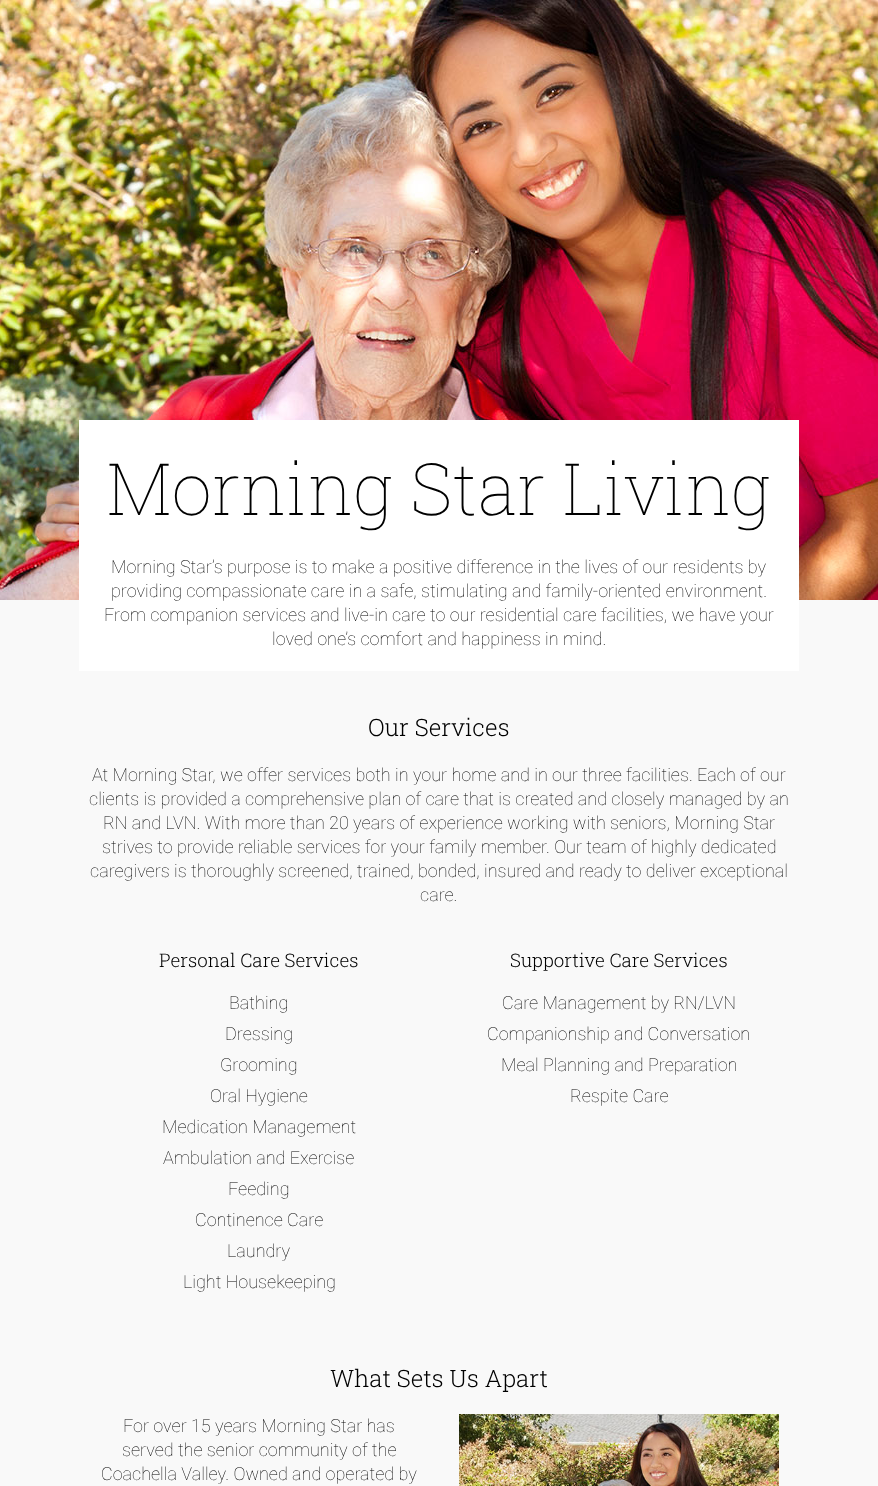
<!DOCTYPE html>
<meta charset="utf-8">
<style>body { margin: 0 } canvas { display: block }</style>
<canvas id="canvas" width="878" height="1486"></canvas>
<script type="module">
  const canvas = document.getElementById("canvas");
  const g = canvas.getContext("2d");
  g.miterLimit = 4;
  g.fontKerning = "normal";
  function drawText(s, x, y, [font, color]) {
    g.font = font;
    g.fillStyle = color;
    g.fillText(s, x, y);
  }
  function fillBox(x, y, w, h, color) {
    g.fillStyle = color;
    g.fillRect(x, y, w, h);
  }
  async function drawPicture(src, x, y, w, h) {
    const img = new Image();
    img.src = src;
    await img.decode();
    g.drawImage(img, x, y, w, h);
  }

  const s1 = ["100 72px Roboto Slab", "#000000"];
  const s2 = ["100 18px Roboto", "#000000"];
  const s3 = ["300 24px Roboto Slab", "#000000"];
  const s4 = ["300 18.75px Roboto Slab", "#000000"];

  fillBox(0, 0, 878, 1486, "#F9F9F9");
  await drawPicture("pic1.png", 0, 0, 878, 600);
  fillBox(79, 420, 720, 251, "#FFFFFF");
  drawText("Morning Star Living", 107, 515, s1);
  drawText("Morning Star’s purpose is to make a positive difference in the lives of our residents by", 111, 573, s2);
  drawText("providing compassionate care in a safe, stimulating and family-oriented environment.", 111, 597, s2);
  drawText("From companion services and live-in care to our residential care facilities, we have your", 104, 621, s2);
  drawText("loved one’s comfort and happiness in mind.", 272, 645, s2);
  drawText("Our Services", 368, 736, s3);
  drawText("At Morning Star, we offer services both in your home and in our three facilities. Each of our", 92, 781, s2);
  drawText("clients is provided a comprehensive plan of care that is created and closely managed by an", 89, 805, s2);
  drawText("RN and LVN. With more than 20 years of experience working with seniors, Morning Star", 103, 829, s2);
  drawText("strives to provide reliable services for your family member. Our team of highly dedicated", 102, 853, s2);
  drawText("caregivers is thoroughly screened, trained, bonded, insured and ready to deliver exceptional", 90, 877, s2);
  drawText("care.", 420, 901, s2);
  drawText("Personal Care Services", 159, 967, s4);
  drawText("Bathing", 229, 1009, s2);
  drawText("Dressing", 225, 1040, s2);
  drawText("Grooming", 220, 1071, s2);
  drawText("Oral Hygiene", 210, 1102, s2);
  drawText("Medication Management", 162, 1133, s2);
  drawText("Ambulation and Exercise", 163, 1164, s2);
  drawText("Feeding", 228, 1195, s2);
  drawText("Continence Care", 195, 1226, s2);
  drawText("Laundry", 227, 1257, s2);
  drawText("Light Housekeeping", 183, 1288, s2);
  drawText("Supportive Care Services", 510, 967, s4);
  drawText("Care Management by RN/LVN", 502, 1009, s2);
  drawText("Companionship and Conversation", 487, 1040, s2);
  drawText("Meal Planning and Preparation", 501, 1071, s2);
  drawText("Respite Care", 570, 1102, s2);
  drawText("What Sets Us Apart", 330, 1387, s3);
  drawText("For over 15 years Morning Star has", 123, 1432, s2);
  drawText("served the senior community of the", 122, 1456, s2);
  drawText("Coachella Valley. Owned and operated by", 101, 1480, s2);
  await drawPicture("pic2.png", 459, 1414, 320, 72);
</script>
